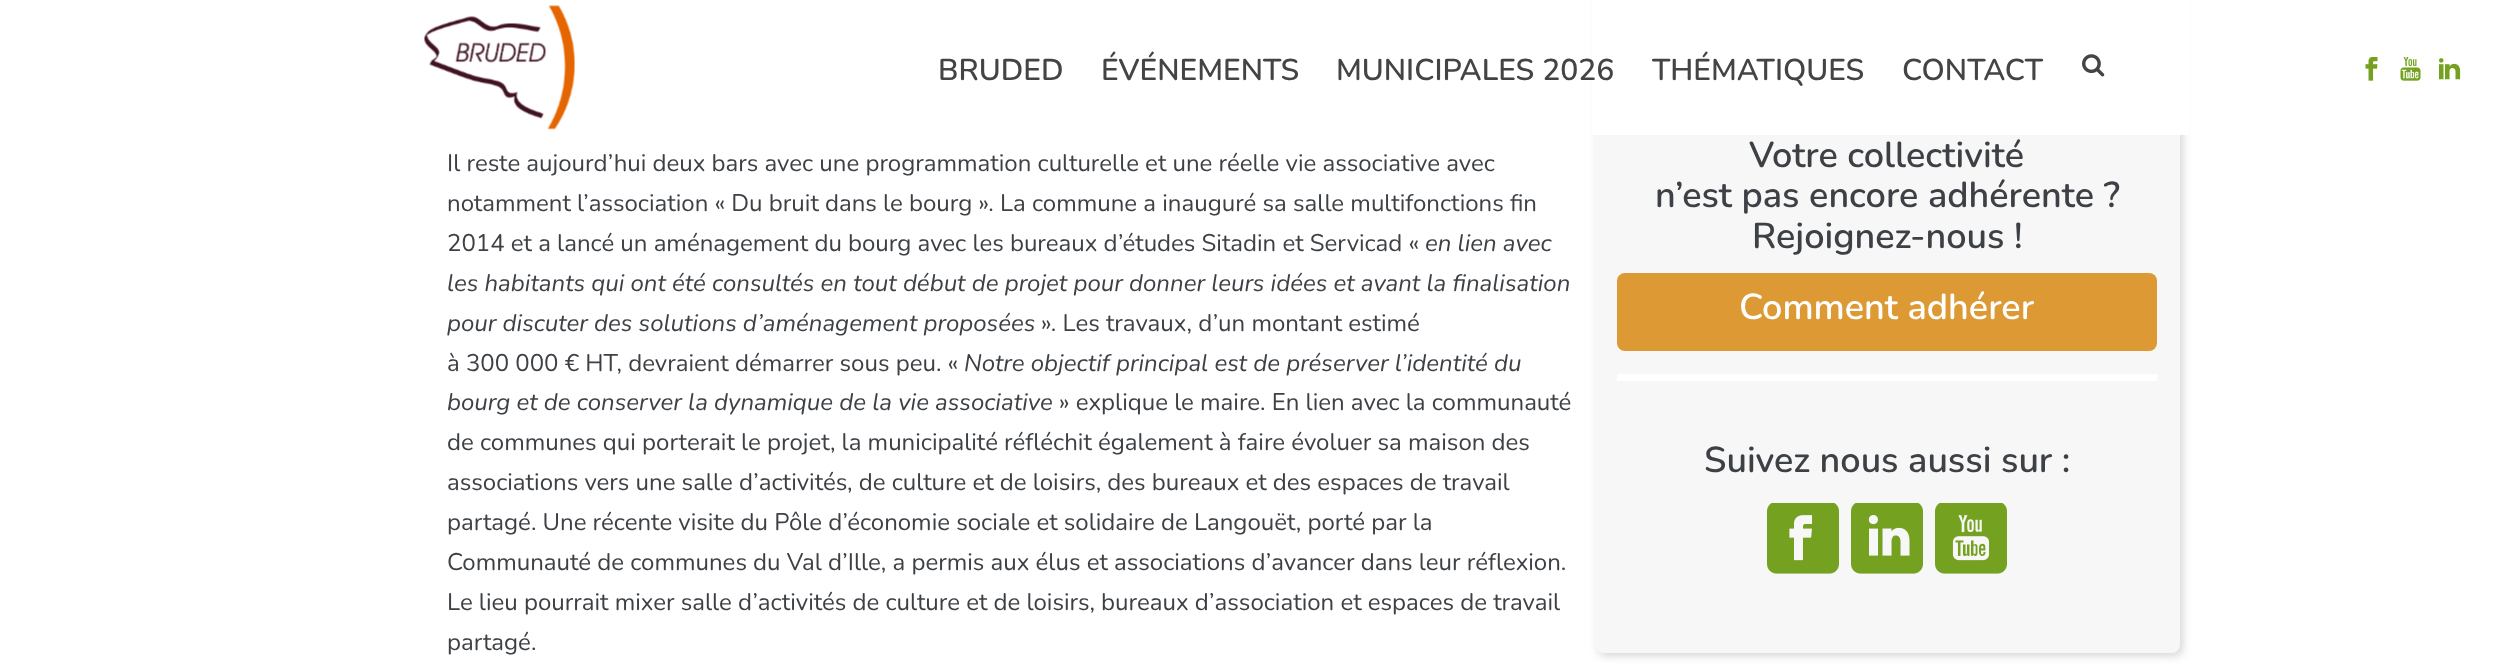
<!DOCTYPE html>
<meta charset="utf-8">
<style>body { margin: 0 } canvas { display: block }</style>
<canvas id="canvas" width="2499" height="672"></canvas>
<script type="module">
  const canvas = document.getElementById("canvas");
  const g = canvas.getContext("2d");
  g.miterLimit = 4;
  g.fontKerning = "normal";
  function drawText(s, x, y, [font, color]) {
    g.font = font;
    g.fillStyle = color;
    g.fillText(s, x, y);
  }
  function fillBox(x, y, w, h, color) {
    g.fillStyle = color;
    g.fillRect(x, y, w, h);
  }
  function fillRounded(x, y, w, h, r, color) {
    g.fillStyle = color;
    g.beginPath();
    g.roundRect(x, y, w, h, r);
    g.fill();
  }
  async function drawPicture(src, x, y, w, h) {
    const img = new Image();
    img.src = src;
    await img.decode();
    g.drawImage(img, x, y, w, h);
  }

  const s1 = ["600 30px Nunito", "#444444"];
  const s2 = ["24px Nunito", "#3D4045"];
  const s3 = ["italic 24px Nunito", "#3D4045"];
  const s4 = ["600 36px Nunito", "#3D4045"];
  const s5 = ["600 36px Nunito", "#FFFFFF"];

  fillBox(0, 0, 2499, 672, "#FFFFFF");
  g.fillStyle = "#D6D6D6";
  g.filter = "blur(4px)";
  g.beginPath();
  g.roundRect(1598, -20, 585, 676, 8);
  g.fill();
  g.filter = "none";
  fillRounded(1595, -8, 585, 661, 8, "#F7F7F7");
  fillBox(1592, 0, 597, 135, "#FFFFFF");
  await drawPicture("pic1.png", 424, 5, 151, 125);
  drawText("BRUDED", 938, 80, s1);
  drawText("ÉVÉNEMENTS", 1101, 80, s1);
  drawText("MUNICIPALES 2026", 1336, 80, s1);
  drawText("THÉMATIQUES", 1652, 80, s1);
  drawText("CONTACT", 1902, 80, s1);
  await drawPicture("pic2.png", 2082, 54, 23, 23);
  await drawPicture("pic3.png", 2365, 57, 13, 24);
  await drawPicture("pic4.png", 2400, 57, 21, 24);
  await drawPicture("pic5.png", 2439, 58, 22, 22);
  drawText("Il reste aujourd’hui deux bars avec une programmation culturelle et une réelle vie associative avec", 447, 171, s2);
  drawText("notamment l’association « Du bruit dans le bourg ». La commune a inauguré sa salle multifonctions fin", 447, 211, s2);
  drawText("2014 et a lancé un aménagement du bourg avec les bureaux d’études Sitadin et Servicad «", 447, 251, s2);
  drawText("en lien avec", 1425, 251, s3);
  drawText("les habitants qui ont été consultés en tout début de projet pour donner leurs idées et avant la finalisation", 447, 291, s3);
  drawText("pour discuter des solutions d’aménagement proposées", 447, 331, s3);
  drawText("». Les travaux, d’un montant estimé", 1041, 331, s2);
  drawText("à 300 000 € HT, devraient démarrer sous peu. «", 447, 371, s2);
  drawText("Notre objectif principal est de préserver l’identité du", 964, 371, s3);
  drawText("bourg et de conserver la dynamique de la vie associative", 447, 410, s3);
  drawText("» explique le maire. En lien avec la communauté", 1059, 410, s2);
  drawText("de communes qui porterait le projet, la municipalité réfléchit également à faire évoluer sa maison des", 447, 450, s2);
  drawText("associations vers une salle d’activités, de culture et de loisirs, des bureaux et des espaces de travail", 447, 490, s2);
  drawText("partagé. Une récente visite du Pôle d’économie sociale et solidaire de Langouët, porté par la", 447, 530, s2);
  drawText("Communauté de communes du Val d’Ille, a permis aux élus et associations d’avancer dans leur réflexion.", 447, 570, s2);
  drawText("Le lieu pourrait mixer salle d’activités de culture et de loisirs, bureaux d’association et espaces de travail", 447, 610, s2);
  drawText("partagé.", 447, 650, s2);
  drawText("Votre collectivité", 1749, 167, s4);
  drawText("n’est pas encore adhérente ?", 1655, 207, s4);
  drawText("Rejoignez-nous !", 1752, 248, s4);
  fillRounded(1617, 273, 540, 78, 8, "#DD9933");
  drawText("Comment adhérer", 1739, 319, s5);
  fillBox(1617, 374, 540, 7, "#FFFFFF");
  drawText("Suivez nous aussi sur :", 1704, 472, s4);
  await drawPicture("pic6.png", 1767, 503, 72, 71);
  await drawPicture("pic7.png", 1851, 503, 72, 71);
  await drawPicture("pic8.png", 1935, 503, 72, 71);
</script>
